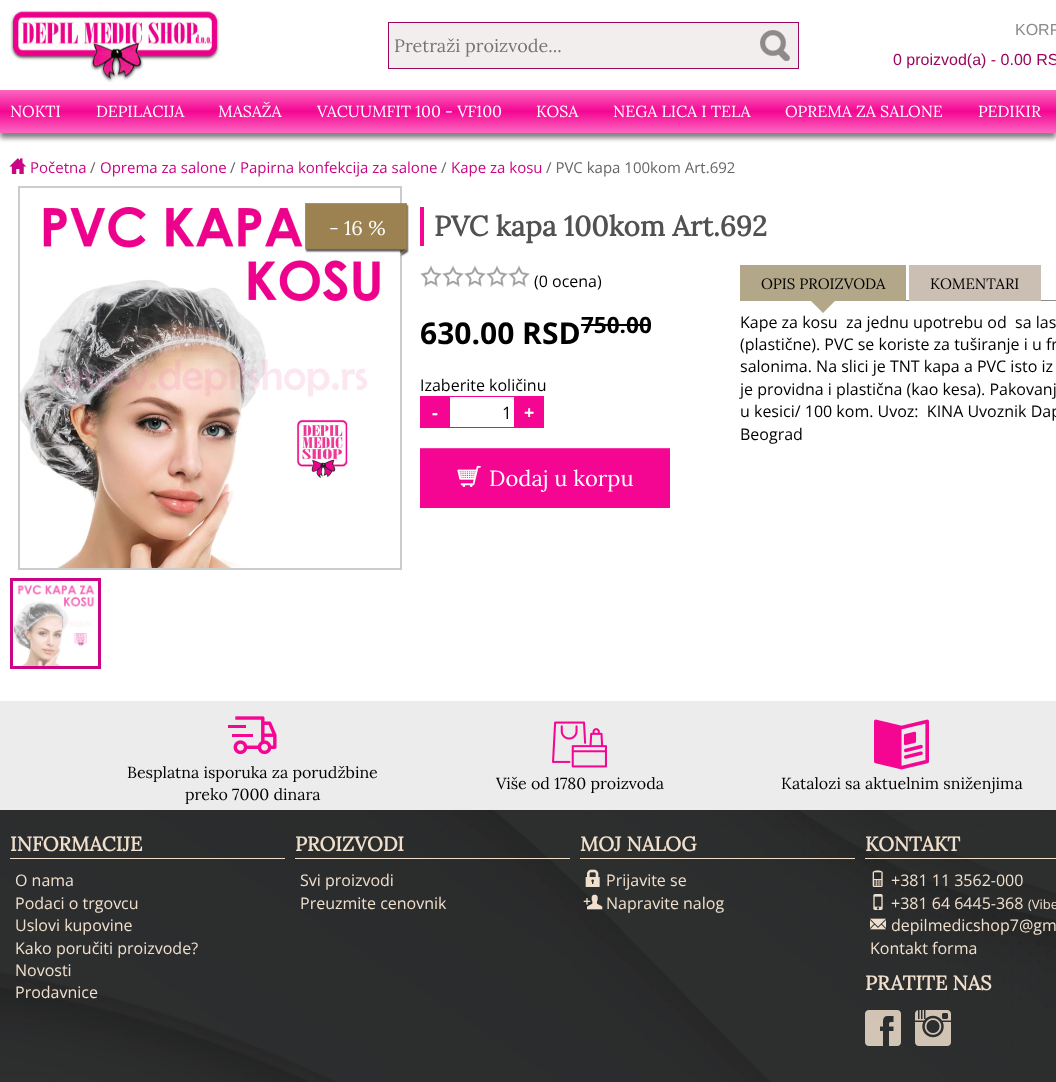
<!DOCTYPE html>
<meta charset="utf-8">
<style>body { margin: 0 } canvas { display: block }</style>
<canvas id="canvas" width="1056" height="1082"></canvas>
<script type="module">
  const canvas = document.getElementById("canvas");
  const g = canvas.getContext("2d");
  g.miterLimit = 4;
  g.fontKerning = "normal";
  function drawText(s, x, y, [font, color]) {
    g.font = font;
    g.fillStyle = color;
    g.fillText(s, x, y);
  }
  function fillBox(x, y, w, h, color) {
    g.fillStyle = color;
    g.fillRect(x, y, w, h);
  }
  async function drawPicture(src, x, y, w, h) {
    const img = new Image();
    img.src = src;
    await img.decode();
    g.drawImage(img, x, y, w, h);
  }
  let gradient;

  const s1 = ["18px Lora", "#757575"];
  const s2 = ["16px Liberation Sans", "#8E8A8A"];
  const s3 = ["16px Liberation Sans", "#9B075F"];
  const s4 = ["16px Lora", "#FFFFFF"];
  const s5 = ["15px Open Sans", "#CA0685"];
  const s6 = ["15px Open Sans", "#666666"];
  const s7 = ["20px Lora", "#FFFFFF"];
  const s8 = ["bold 28px Lora", "#525050"];
  const s9 = ["16px Open Sans", "#000000"];
  const s10 = ["bold 30px Open Sans", "#000000"];
  const s11 = ["bold 22.5px Open Sans", "#000000"];
  const s12 = ["bold 18px Open Sans", "#FFFFFF"];
  const s13 = ["17px Open Sans", "#000000"];
  const s14 = ["22px Lora", "#FFFFFF"];
  const s15 = ["15px Lora", "#000000"];
  const s16 = ["16px Lora", "#000000"];
  const s17 = ["bold 20px Lora", "#F0DFCC"];
  const s18 = ["16px Open Sans", "#F0DFCC"];
  const s19 = ["13px Open Sans", "#F0DFCC"];

  fillBox(0, 0, 1056, 1082, "#FFFFFF");
  await drawPicture("pic1.png", 10, 2, 210, 81);
  fillBox(389, 23, 409, 45, "#F3EEEE");
  await drawPicture("pic2.png", 760, 30, 30, 31);
  g.strokeStyle = "#9B075F";
  g.strokeRect(388.5, 22.5, 410, 46);
  drawText("Pretraži proizvode...", 394, 52, s1);
  drawText("KORP", 1015, 35, s2);
  drawText("0 proizvod(a) - 0.00 RS", 893, 65, s3);
  g.fillStyle = "rgba(0, 0, 0, 0.5)";
  g.filter = "blur(2.5px)";
  g.beginPath();
  g.rect(0, 95, 1056, 43);
  g.fill();
  g.filter = "none";
  gradient = g.createLinearGradient(528, 90, 528, 133);
  gradient.addColorStop(0, "#FC68C0");
  gradient.addColorStop(0.5, "#F40693");
  gradient.addColorStop(1, "#FC68C0");
  g.fillStyle = gradient;
  g.fillRect(0, 90, 1056, 43);
  drawText("NOKTI", 10, 117, s4);
  drawText("DEPILACIJA", 96, 117, s4);
  drawText("MASAŽA", 218, 117, s4);
  drawText("VACUUMFIT 100 - VF100", 317, 117, s4);
  drawText("KOSA", 536, 117, s4);
  drawText("NEGA LICA I TELA", 613, 117, s4);
  drawText("OPREMA ZA SALONE", 785, 117, s4);
  drawText("PEDIKIR", 978, 117, s4);
  await drawPicture("pic3.png", 9, 158, 18, 16);
  drawText("Početna", 30, 173, s5);
  drawText("/", 90, 173, s6);
  drawText("Oprema za salone", 100, 173, s5);
  drawText("/", 230, 173, s6);
  drawText("Papirna konfekcija za salone", 240, 173, s5);
  drawText("/", 441, 173, s6);
  drawText("Kape za kosu", 451, 173, s5);
  drawText("/ PVC kapa 100kom Art.692", 546, 173, s6);
  g.strokeStyle = "#CCCCCC";
  g.lineWidth = 2;
  g.strokeRect(19, 187, 382, 382);
  await drawPicture("pic4.png", 20, 205, 363, 363);
  await drawPicture("pic5.png", 305, 203, 104, 54);
  drawText("- 16 %", 329, 235, s7);
  g.strokeStyle = "#CA0685";
  g.lineWidth = 3;
  g.strokeRect(11.5, 579.5, 88, 88);
  await drawPicture("pic6.png", 13, 584, 82, 82);
  fillBox(420, 207, 4, 39, "#F40692");
  drawText("PVC kapa 100kom Art.692", 434, 236, s8);
  await drawPicture("pic7.png", 420, 265, 110, 22);
  drawText("(0 ocena)", 534, 287, s9);
  drawText("630.00 RSD", 420, 344, s10);
  drawText("750.00", 581, 333, s11);
  fillBox(581, 324, 70, 2, "#000000");
  drawText("Izaberite količinu", 420, 391, s9);
  fillBox(420, 396, 30, 32, "#F40693");
  drawText("-", 432, 419, s12);
  fillBox(450, 396, 64, 1, "#F40693");
  fillBox(450, 427, 64, 1, "#F40693");
  drawText("1", 502, 419, s13);
  fillBox(514, 396, 30, 32, "#F40693");
  drawText("+", 524, 419, s12);
  fillBox(420, 449, 250, 59, "#F40692");
  fillBox(420, 448, 250, 1, "#F638A8");
  await drawPicture("pic8.png", 457, 465, 24, 22);
  drawText("Dodaj u korpu", 489, 486, s14);
  fillBox(906, 300, 150, 1, "#8E8A8A");
  fillBox(740, 265, 166, 36, "#B2A789");
  drawText("OPIS PROIZVODA", 761, 289, s15);
  g.fillStyle = "#B2A789";
  g.beginPath();
  g.moveTo(811, 301);
  g.lineTo(835, 301);
  g.lineTo(823, 313);
  g.closePath();
  g.fill();
  fillBox(909, 265, 132, 36, "#CBBEB3");
  drawText("KOMENTARI", 930, 289, s15);
  drawText("Kape za kosu  za jednu upotrebu od  sa las", 740, 328, s9);
  drawText("(plastične). PVC se koriste za tuširanje i u fr", 740, 350, s9);
  drawText("salonima. Na slici je TNT kapa a PVC isto iz", 740, 372, s9);
  drawText("je providna i plastična (kao kesa). Pakovanj", 740, 395, s9);
  drawText("u kesici/ 100 kom. Uvoz:  KINA Uvoznik Dap", 740, 417, s9);
  drawText("Beograd", 740, 440, s9);
  fillBox(0, 701, 1056, 109, "#ECECEC");
  await drawPicture("pic9.png", 228, 716, 49, 39);
  drawText("Besplatna isporuka za porudžbine", 127, 778, s16);
  drawText("preko 7000 dinara", 185, 800, s16);
  await drawPicture("pic10.png", 552, 721, 55, 47);
  drawText("Više od 1780 proizvoda", 496, 789, s16);
  await drawPicture("pic11.png", 874, 719, 55, 51);
  drawText("Katalozi sa aktuelnim sniženjima", 781, 789, s16);
  await drawPicture("pic12.png", 0, 810, 1056, 272);
  fillBox(10, 858, 275, 1, "#F0DFCC");
  drawText("INFORMACIJE", 10, 851, s17);
  drawText("O nama", 15, 886, s18);
  drawText("Podaci o trgovcu", 15, 909, s18);
  drawText("Uslovi kupovine", 15, 931, s18);
  drawText("Kako poručiti proizvode?", 15, 954, s18);
  drawText("Novosti", 15, 976, s18);
  drawText("Prodavnice", 15, 998, s18);
  fillBox(295, 858, 275, 1, "#F0DFCC");
  drawText("PROIZVODI", 295, 851, s17);
  drawText("Svi proizvodi", 300, 886, s18);
  drawText("Preuzmite cenovnik", 300, 909, s18);
  fillBox(580, 858, 275, 1, "#F0DFCC");
  drawText("MOJ NALOG", 580, 851, s17);
  await drawPicture("pic13.png", 585, 869, 15, 18);
  drawText("Prijavite se", 606, 886, s18);
  await drawPicture("pic14.png", 583, 894, 20, 16);
  drawText("Napravite nalog", 606, 909, s18);
  fillBox(865, 858, 191, 1, "#F0DFCC");
  drawText("KONTAKT", 865, 851, s17);
  await drawPicture("pic15.png", 872, 870, 11, 17);
  drawText("+381 11 3562-000", 891, 886, s18);
  await drawPicture("pic16.png", 873, 894, 10, 16);
  drawText("+381 64 6445-368", 891, 909, s18);
  drawText("(Vibe", 1028, 909, s19);
  await drawPicture("pic17.png", 870, 918, 16, 12);
  drawText("depilmedicshop7@gm", 891, 931, s18);
  drawText("Kontakt forma", 870, 954, s18);
  drawText("PRATITE NAS", 865, 990, s17);
  await drawPicture("pic18.png", 865, 1010, 36, 36);
  await drawPicture("pic19.png", 915, 1010, 36, 36);
</script>
